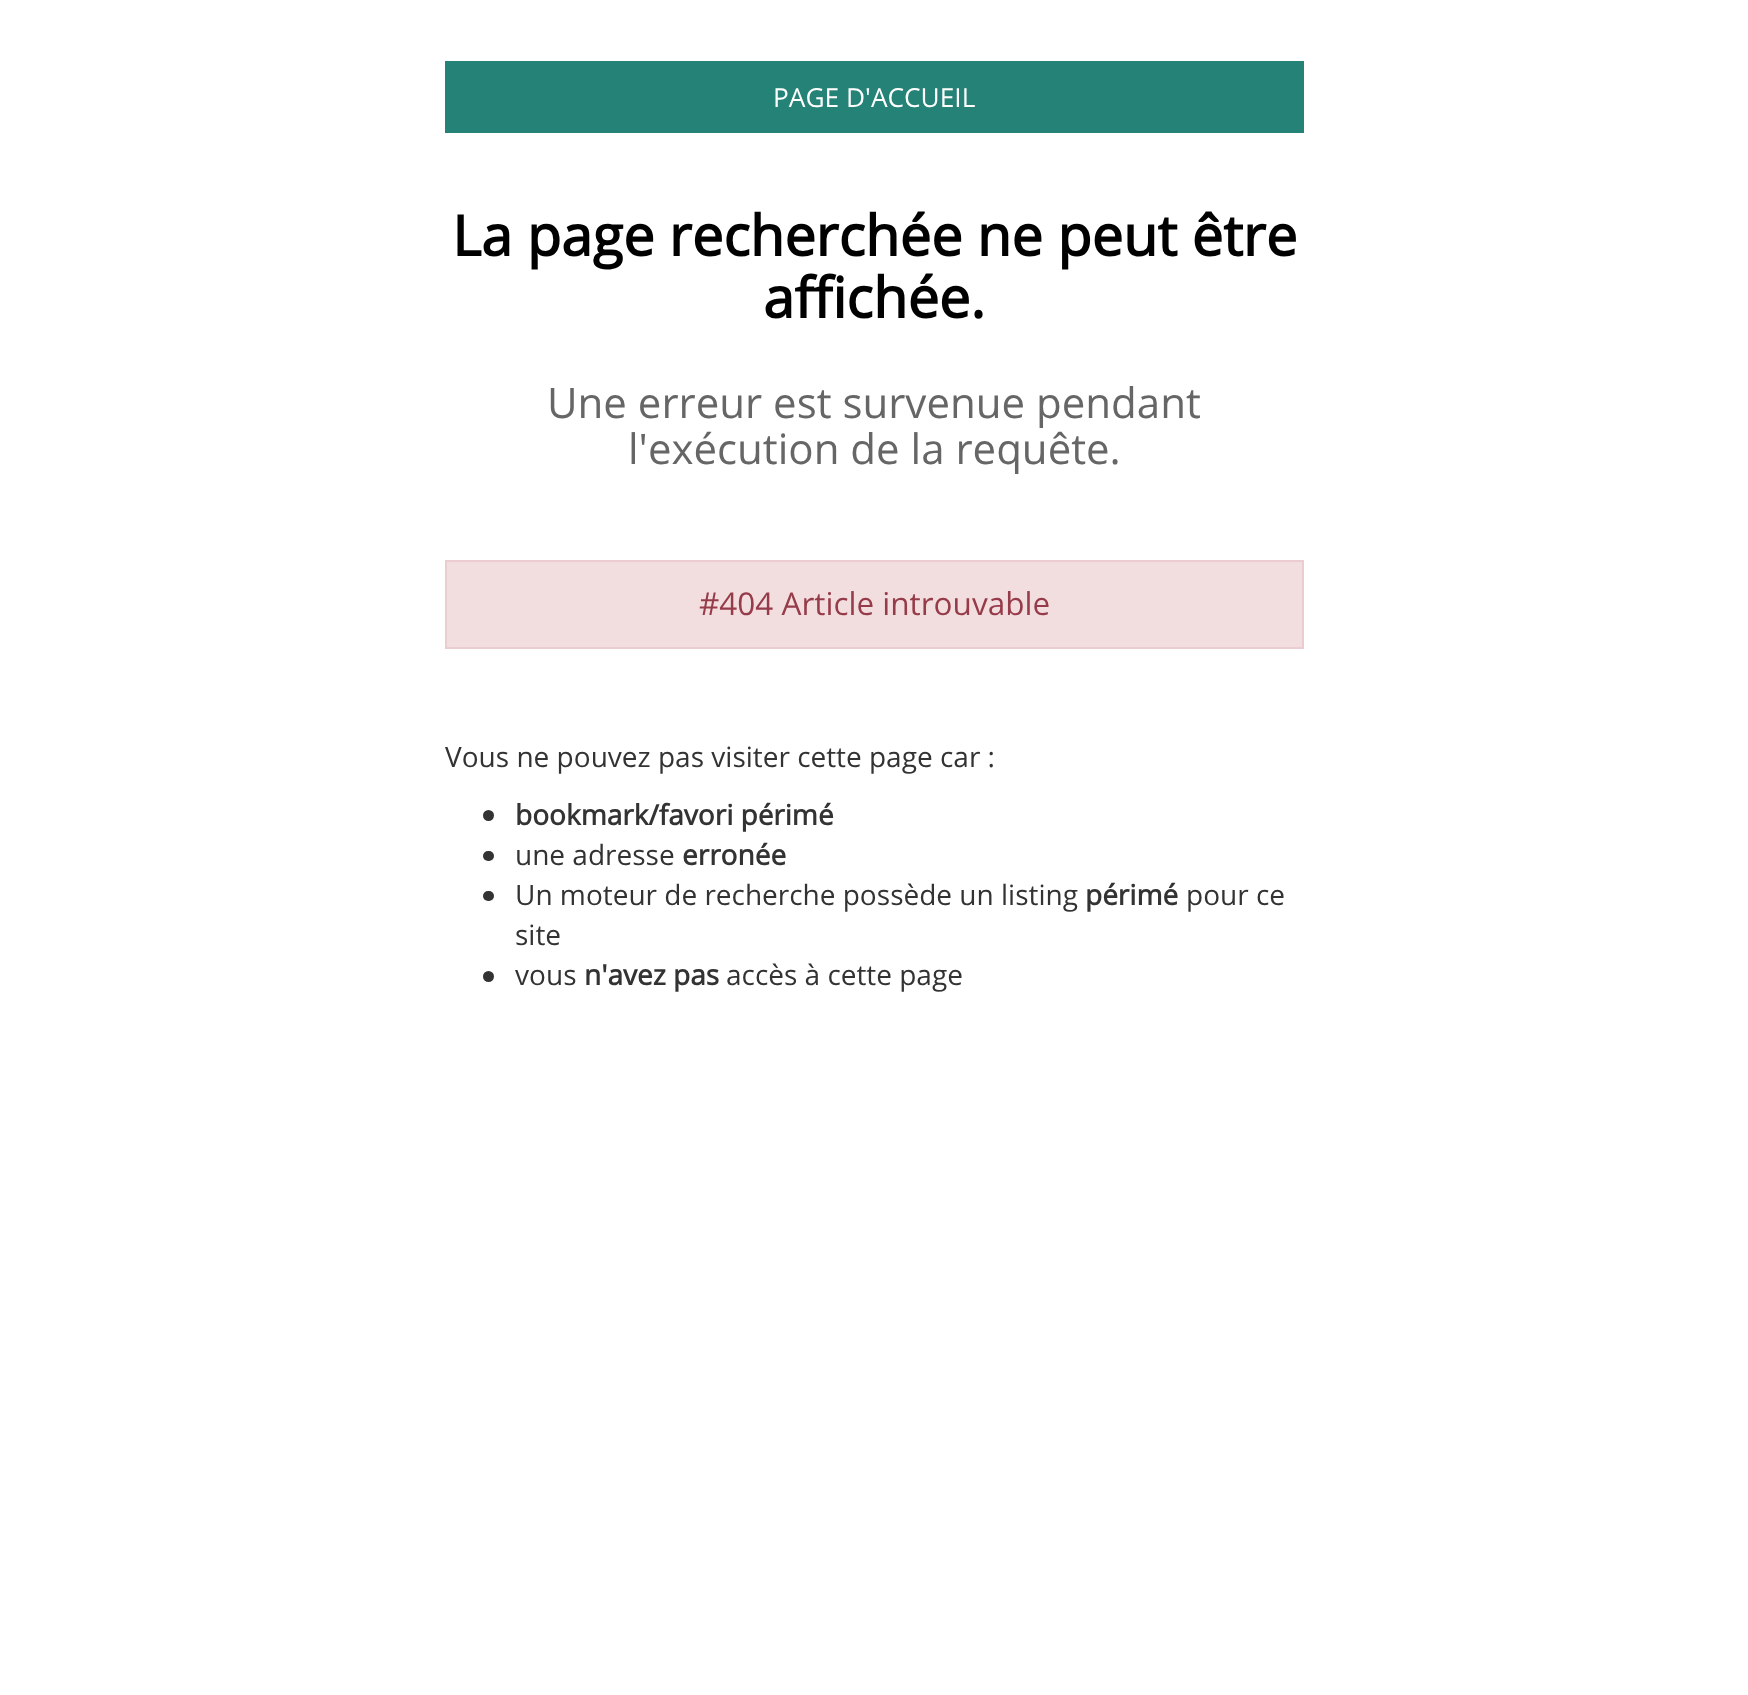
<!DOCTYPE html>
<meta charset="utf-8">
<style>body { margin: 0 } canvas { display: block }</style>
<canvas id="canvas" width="1748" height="1695"></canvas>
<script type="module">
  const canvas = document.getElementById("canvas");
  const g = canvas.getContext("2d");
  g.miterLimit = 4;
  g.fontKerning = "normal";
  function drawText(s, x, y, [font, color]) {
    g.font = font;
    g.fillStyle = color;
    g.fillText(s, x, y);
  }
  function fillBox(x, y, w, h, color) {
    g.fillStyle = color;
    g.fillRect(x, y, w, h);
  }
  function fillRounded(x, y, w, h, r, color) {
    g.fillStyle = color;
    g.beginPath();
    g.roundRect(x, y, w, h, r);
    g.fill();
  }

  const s1 = ["26.25px Open Sans", "#FFFFFF"];
  const s2 = ["bold 56px Open Sans", "#000000"];
  const s3 = ["42px Open Sans", "#666666"];
  const s4 = ["31.5px Open Sans", "#963B4A"];
  const s5 = ["28px Open Sans", "#333333"];
  const s6 = ["bold 28px Open Sans", "#333333"];

  fillBox(0, 0, 1748, 1695, "#FFFFFF");
  fillBox(445, 61, 859, 72, "#248277");
  drawText("PAGE D'ACCUEIL", 773, 107, s1);
  drawText("La page recherchée ne peut être", 452, 256, s2);
  drawText("affichée.", 763, 318, s2);
  drawText("Une erreur est survenue pendant", 547, 418, s3);
  drawText("l'exécution de la requête.", 628, 464, s3);
  g.fillStyle = "#F2DEDE";
  g.beginPath();
  g.rect(446, 561, 857, 87);
  g.fill();
  g.strokeStyle = "#EBCCD1";
  g.lineWidth = 2;
  g.stroke();
  drawText("#404 Article introuvable", 699, 615, s4);
  drawText("Vous ne pouvez pas visiter cette page car :", 445, 767, s5);
  g.beginPath();
  g.arc(488.5, 815.5, 5.5, 0, Math.PI * 2);
  g.fill();
  drawText("bookmark/favori périmé", 515, 825, s6);
  fillRounded(483, 851, 11, 10, 5, "#333333");
  drawText("une adresse", 515, 865, s5);
  drawText("erronée", 682, 865, s6);
  fillRounded(483, 891, 11, 10, 5, "#333333");
  drawText("Un moteur de recherche possède un listing", 515, 905, s5);
  drawText("périmé", 1085, 905, s6);
  drawText("pour ce", 1186, 905, s5);
  drawText("site", 515, 945, s5);
  g.beginPath();
  g.arc(488.5, 976.5, 5.5, 0, Math.PI * 2);
  g.fill();
  drawText("vous", 515, 985, s5);
  drawText("n'avez pas", 584, 985, s6);
  drawText("accès à cette page", 726, 985, s5);
</script>
